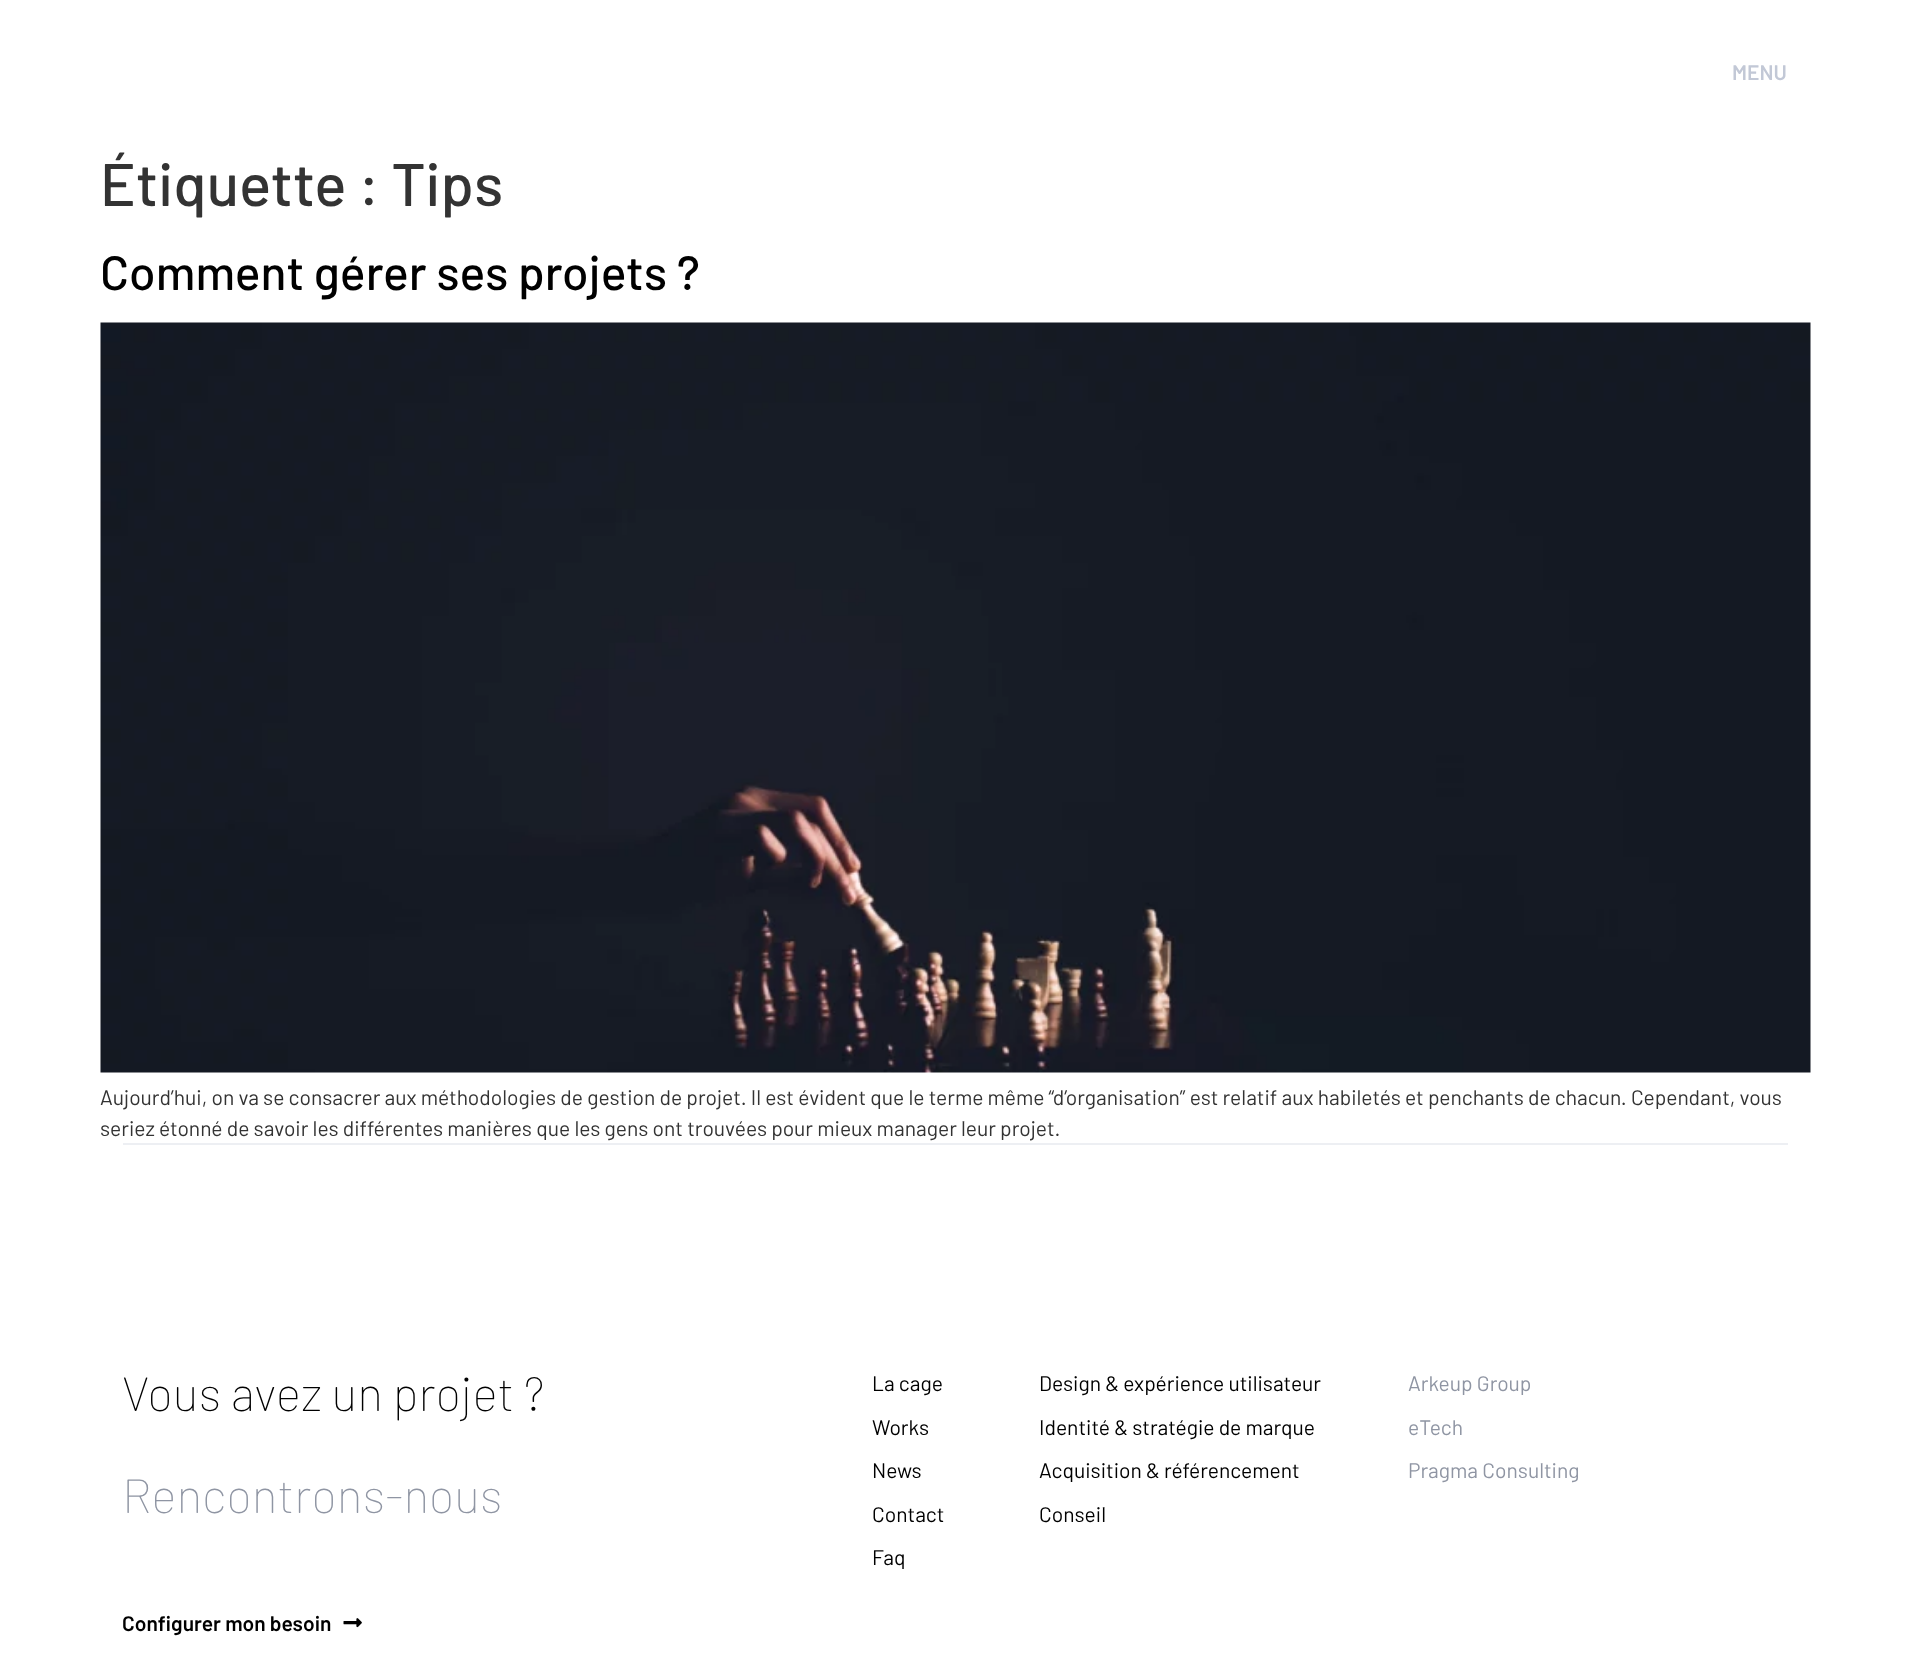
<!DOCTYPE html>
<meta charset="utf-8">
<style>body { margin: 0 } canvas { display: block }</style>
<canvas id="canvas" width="1909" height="1679"></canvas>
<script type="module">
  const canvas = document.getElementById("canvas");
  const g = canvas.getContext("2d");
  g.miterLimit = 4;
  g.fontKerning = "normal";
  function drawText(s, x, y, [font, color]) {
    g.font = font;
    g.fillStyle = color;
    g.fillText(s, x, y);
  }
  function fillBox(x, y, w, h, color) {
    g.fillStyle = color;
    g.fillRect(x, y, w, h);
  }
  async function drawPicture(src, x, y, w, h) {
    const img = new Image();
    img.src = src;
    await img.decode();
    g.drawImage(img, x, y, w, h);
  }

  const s1 = ["600 21px Barlow", "#C2C8D6"];
  const s2 = ["500 60px Barlow", "#333333"];
  const s3 = ["500 48px Barlow", "#000000"];
  const s4 = ["21px Barlow", "#333333"];
  const s5 = ["200 48px Barlow", "#000000"];
  const s6 = ["200 48px Barlow", "#8F95A3"];
  const s7 = ["600 21px Barlow", "#000000"];
  const s8 = ["21px Barlow", "#000000"];
  const s9 = ["21px Barlow", "#8F95A3"];

  fillBox(0, 0, 1909, 1679, "#FFFFFF");
  drawText("MENU", 1732, 80, s1);
  drawText("Étiquette : Tips", 100, 206, s2);
  drawText("Comment gérer ses projets ?", 100, 290, s3);
  await drawPicture("pic1.png", 100, 322, 1711, 751);
  drawText("Aujourd’hui, on va se consacrer aux méthodologies de gestion de projet. Il est évident que le terme même “d’organisation” est relatif aux habiletés et penchants de chacun. Cependant, vous", 100, 1105, s4);
  drawText("seriez étonné de savoir les différentes manières que les gens ont trouvées pour mieux manager leur projet.", 100, 1136, s4);
  fillBox(123, 1143, 1665, 2, "#EDEFF3");
  drawText("Vous avez un projet ?", 122, 1411, s5);
  drawText("Rencontrons-nous", 122, 1513, s6);
  drawText("Configurer mon besoin", 122, 1631, s7);
  await drawPicture("pic2.png", 343, 1618, 19, 10);
  drawText("La cage", 872, 1391, s8);
  drawText("Works", 872, 1435, s8);
  drawText("News", 872, 1478, s8);
  drawText("Contact", 872, 1522, s8);
  drawText("Faq", 872, 1565, s8);
  drawText("Design & expérience utilisateur", 1039, 1391, s8);
  drawText("Identité & stratégie de marque", 1039, 1435, s8);
  drawText("Acquisition & référencement", 1039, 1478, s8);
  drawText("Conseil", 1039, 1522, s8);
  drawText("Arkeup Group", 1408, 1391, s9);
  drawText("eTech", 1408, 1435, s9);
  drawText("Pragma Consulting", 1408, 1478, s9);
</script>
